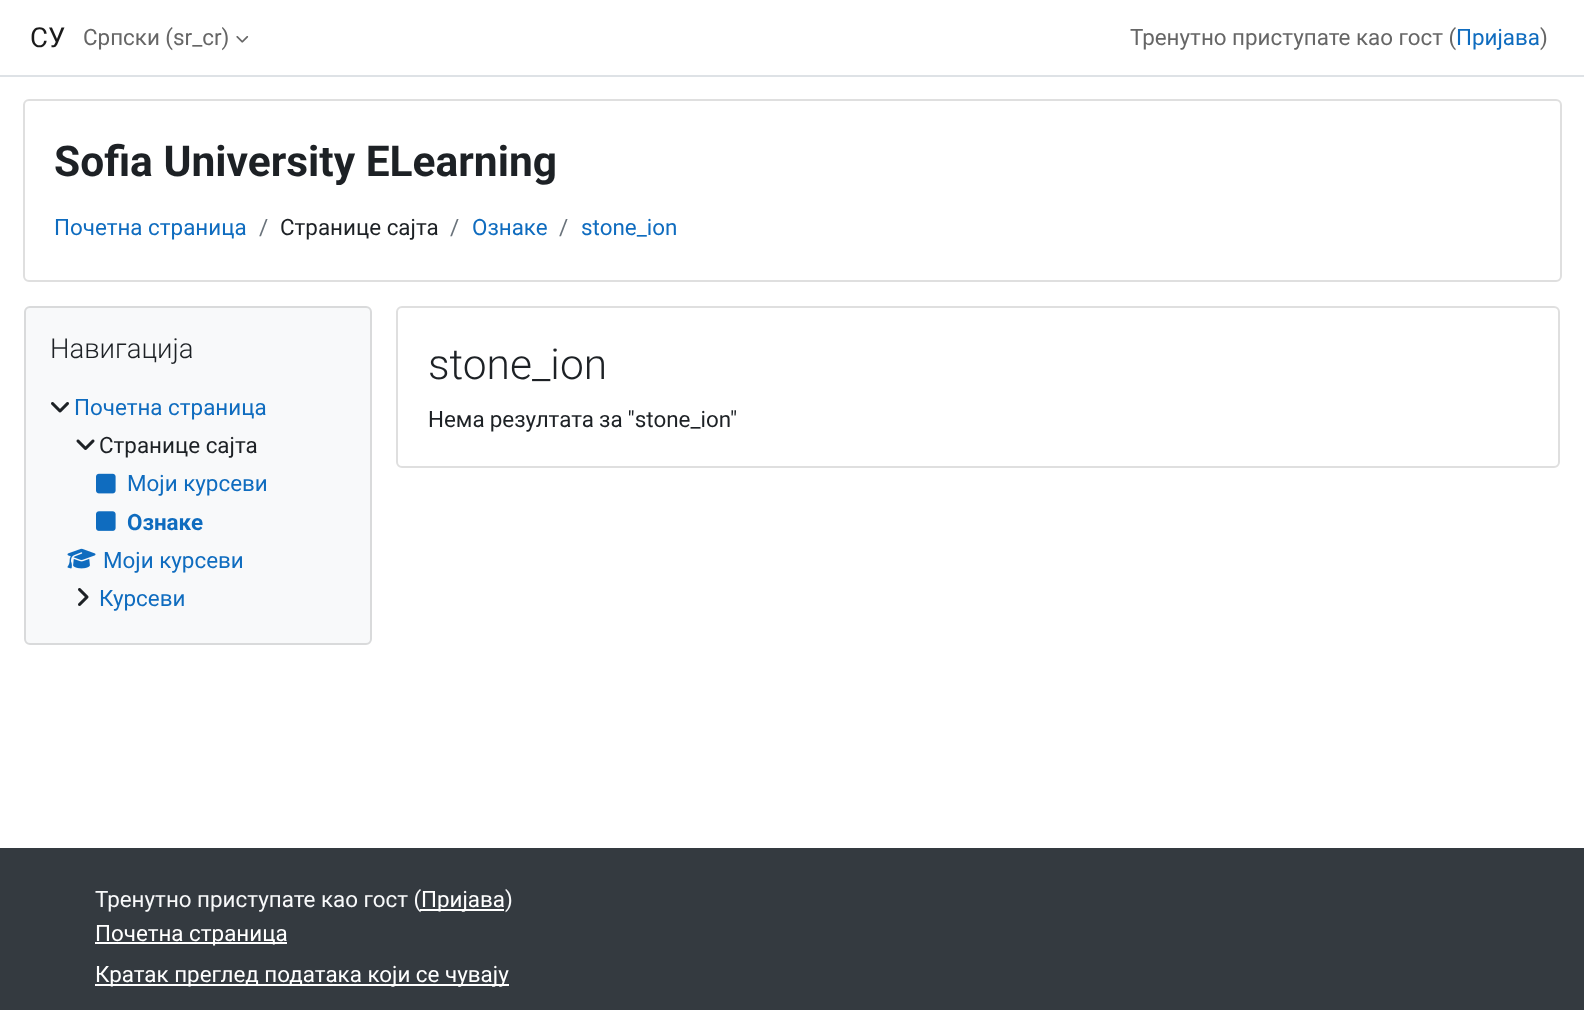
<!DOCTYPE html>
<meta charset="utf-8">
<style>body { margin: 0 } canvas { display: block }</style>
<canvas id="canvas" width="1584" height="1010"></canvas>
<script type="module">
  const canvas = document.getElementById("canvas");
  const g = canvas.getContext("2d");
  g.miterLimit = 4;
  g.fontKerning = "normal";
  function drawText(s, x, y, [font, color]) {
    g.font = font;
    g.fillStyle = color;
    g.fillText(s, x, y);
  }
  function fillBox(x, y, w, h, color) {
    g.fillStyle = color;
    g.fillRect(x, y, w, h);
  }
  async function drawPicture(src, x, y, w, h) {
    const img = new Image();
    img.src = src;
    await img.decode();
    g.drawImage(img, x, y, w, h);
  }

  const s1 = ["27.5px Roboto", "#1A1A1A"];
  const s2 = ["22.4px Roboto", "#666666"];
  const s3 = ["22.4px Roboto", "#0F6CBF"];
  const s4 = ["bold 42.5px Roboto", "#1D2125"];
  const s5 = ["22.4px Roboto", "#6A737B"];
  const s6 = ["22.4px Roboto", "#1D2125"];
  const s7 = ["300 27.5px Roboto", "#1D2125"];
  const s8 = ["bold 22.4px Roboto", "#0F6CBF"];
  const s9 = ["300 42.5px Roboto", "#1D2125"];
  const s10 = ["22.4px Roboto", "#F8F9FA"];
  const s11 = ["22.4px Roboto", "#FFFFFF"];

  fillBox(0, 0, 1584, 1010, "#FFFFFF");
  fillBox(0, 75, 1584, 2, "#DEE2E6");
  drawText("СУ", 30, 47, s1);
  drawText("Српски (sr_cr)", 83, 45, s2);
  await drawPicture("pic1.png", 236, 36, 13, 7);
  drawText("Тренутно приступате као гост (", 1130, 45, s2);
  drawText("Пријава", 1456, 45, s3);
  drawText(")", 1540, 45, s2);
  g.beginPath();
  g.roundRect(24, 100, 1537, 181, 5);
  g.strokeStyle = "#DFDFDF";
  g.lineWidth = 2;
  g.stroke();
  drawText("Sofia University ELearning", 54, 176, s4);
  drawText("Почетна страница", 54, 235, s3);
  drawText("/", 259, 235, s5);
  drawText("Странице сајта", 280, 235, s6);
  drawText("/", 450, 235, s5);
  drawText("Ознаке", 472, 235, s3);
  drawText("/", 559, 235, s5);
  drawText("stone_ion", 581, 235, s3);
  g.fillStyle = "#F8F9FA";
  g.beginPath();
  g.roundRect(25, 307, 346, 337, 5);
  g.fill();
  g.strokeStyle = "#D9DADB";
  g.stroke();
  drawText("Навигација", 50, 358, s7);
  await drawPicture("pic2.png", 51, 402, 18, 11);
  drawText("Почетна страница", 74, 415, s3);
  await drawPicture("pic3.png", 76, 439, 19, 11);
  drawText("Странице сајта", 99, 453, s6);
  await drawPicture("pic4.png", 96, 473, 20, 21);
  drawText("Моји курсеви", 127, 491, s3);
  await drawPicture("pic5.png", 96, 511, 20, 20);
  drawText("Ознаке", 127, 530, s8);
  await drawPicture("pic6.png", 67, 548, 29, 21);
  drawText("Моји курсеви", 103, 568, s3);
  await drawPicture("pic7.png", 78, 588, 11, 18);
  drawText("Курсеви", 99, 606, s3);
  g.beginPath();
  g.roundRect(397, 307, 1162, 160, 5);
  g.strokeStyle = "#DFDFDF";
  g.stroke();
  drawText("stone_ion", 428, 379, s9);
  g.wordSpacing = "-0.5px";
  drawText("Нема резултата за \"stone_ion\"", 428, 427, s6);
  fillBox(0, 848, 1584, 162, "#343A40");
  g.wordSpacing = "0px";
  drawText("Тренутно приступате као гост (", 95, 907, s10);
  fillBox(420, 909, 84, 2, "#FFFFFF");
  drawText("Пријава", 421, 907, s11);
  drawText(")", 505, 907, s10);
  fillBox(95, 942, 192, 2, "#FFFFFF");
  drawText("Почетна страница", 95, 941, s11);
  fillBox(95, 984, 414, 2, "#FFFFFF");
  drawText("Кратак преглед података који се чувају", 95, 982, s11);
</script>
